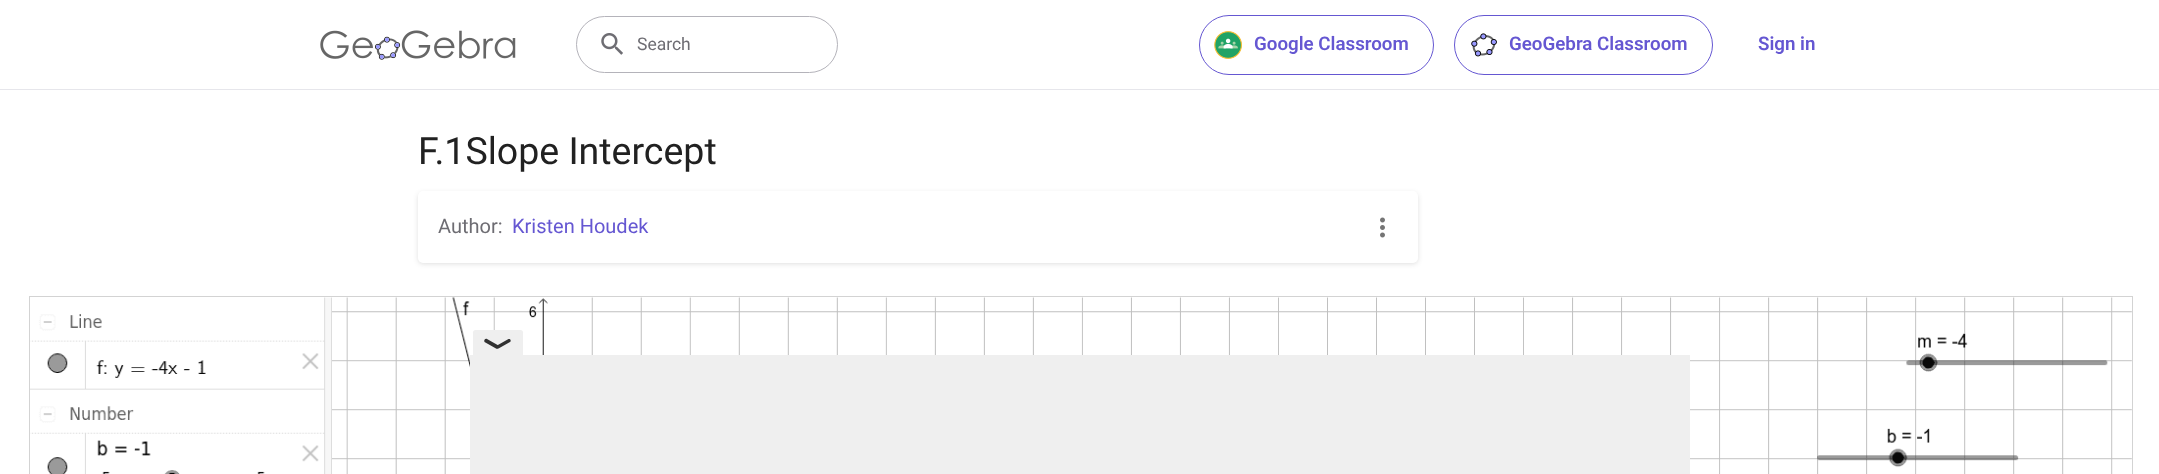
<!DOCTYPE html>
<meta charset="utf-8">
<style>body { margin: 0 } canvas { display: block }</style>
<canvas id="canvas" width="2159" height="474"></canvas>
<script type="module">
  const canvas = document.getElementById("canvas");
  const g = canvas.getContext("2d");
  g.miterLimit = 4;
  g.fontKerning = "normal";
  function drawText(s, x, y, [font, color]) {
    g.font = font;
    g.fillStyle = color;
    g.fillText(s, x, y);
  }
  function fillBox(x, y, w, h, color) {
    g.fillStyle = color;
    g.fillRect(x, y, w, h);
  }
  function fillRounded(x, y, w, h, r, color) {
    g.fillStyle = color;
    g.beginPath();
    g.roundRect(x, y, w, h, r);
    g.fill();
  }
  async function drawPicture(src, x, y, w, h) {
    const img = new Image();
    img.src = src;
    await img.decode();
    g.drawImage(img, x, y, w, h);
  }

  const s1 = ["17.5px Roboto", "#6E6D73"];
  const s2 = ["600 18.75px Roboto", "#6557D2"];
  const s3 = ["37.5px Roboto", "#212121"];
  const s4 = ["20px Roboto", "#6E6D73"];
  const s5 = ["20px Roboto", "#6557D2"];

  fillBox(0, 0, 2159, 474, "#FFFFFF");
  fillBox(0, 89, 2159, 1, "#E6E6EB");
  await drawPicture("pic1.png", 320, 30, 196, 30);
  g.beginPath();
  g.roundRect(576.5, 16.5, 261, 56, 28);
  g.strokeStyle = "#B4B3BA";
  g.stroke();
  await drawPicture("pic2.png", 601, 33, 22, 22);
  drawText("Search", 637, 50, s1);
  g.beginPath();
  g.roundRect(1199.5, 15.5, 234, 59, 29.5);
  g.strokeStyle = "#6557D2";
  g.stroke();
  await drawPicture("pic3.png", 1214, 31, 28, 28);
  drawText("Google Classroom", 1254, 50, s2);
  g.beginPath();
  g.roundRect(1454.5, 15.5, 258, 59, 29.5);
  g.stroke();
  await drawPicture("pic4.png", 1471, 33, 26, 24);
  drawText("GeoGebra Classroom", 1509, 50, s2);
  drawText("Sign in", 1758, 50, s2);
  drawText("F.1Slope Intercept", 418, 164, s3);
  g.fillStyle = "rgba(28, 28, 31, 0.14)";
  g.filter = "blur(2.5px)";
  g.beginPath();
  g.roundRect(418, 193, 1000, 71, 5);
  g.fill();
  g.filter = "none";
  fillRounded(418, 191, 1000, 72, 5, "#FFFFFF");
  drawText("Author:", 438, 233, s4);
  drawText("Kristen Houdek", 512, 233, s5);
  await drawPicture("pic5.png", 1380, 217, 5, 21);
  await drawPicture("pic6.png", 30, 297, 2102, 177);
  g.strokeStyle = "#D3D3D3";
  g.strokeRect(29.5, 296.5, 2103, 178);
  g.fillStyle = "#EFEFEF";
  g.beginPath();
  g.roundRect(473, 330, 50, 25, [2.5, 2.5, 0, 0]);
  g.fill();
  g.fillStyle = "#313131";
  g.beginPath();
  g.moveTo(487, 339);
  g.lineTo(498.5, 345.5);
  g.bezierCurveTo(499.5, 347.5, 497.5, 349.5, 496, 348.5);
  g.lineTo(484.5, 342);
  g.bezierCurveTo(483.5, 340, 485.5, 338, 487, 339);
  g.closePath();
  g.fill();
  g.beginPath();
  g.moveTo(497, 345.5);
  g.lineTo(508.5, 339);
  g.bezierCurveTo(510.5, 338.5, 511.5, 341, 510, 342);
  g.lineTo(498.5, 348.5);
  g.bezierCurveTo(496.5, 349, 495.5, 346, 497, 345.5);
  g.closePath();
  g.fill();
  fillBox(470, 355, 1220, 119, "#EFEFEF");
</script>
